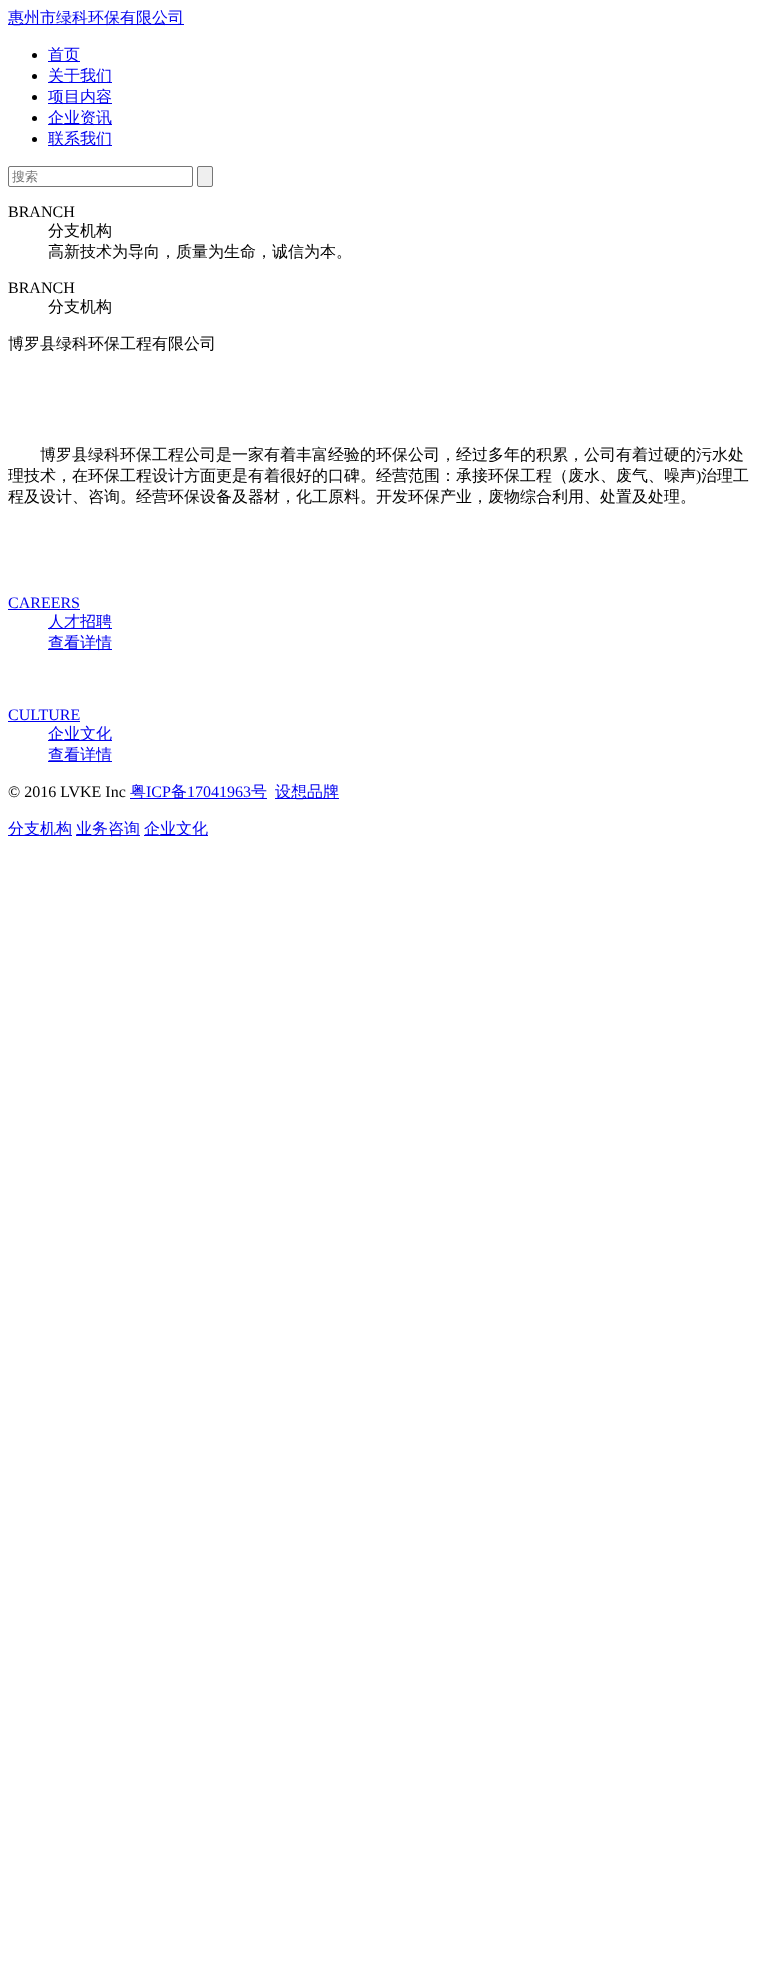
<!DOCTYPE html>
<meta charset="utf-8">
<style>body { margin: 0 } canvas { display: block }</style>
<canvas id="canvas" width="765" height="1977"></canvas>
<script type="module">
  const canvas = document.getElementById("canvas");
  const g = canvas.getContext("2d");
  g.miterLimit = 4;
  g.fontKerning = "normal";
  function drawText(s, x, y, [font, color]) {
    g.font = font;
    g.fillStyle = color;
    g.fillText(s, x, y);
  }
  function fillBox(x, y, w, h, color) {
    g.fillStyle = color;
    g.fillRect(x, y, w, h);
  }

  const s1 = ["500 16px WenQuanYi Zen Hei", "#0000EE"];
  const s2 = ["500 13px WenQuanYi Zen Hei", "#757575"];
  const s3 = ["16px Liberation Serif", "#000000"];
  const s4 = ["500 16px WenQuanYi Zen Hei", "#000000"];
  const s5 = ["16px Liberation Serif", "#0000EE"];

  fillBox(0, 0, 765, 1977, "#FFFFFF");
  fillBox(8, 24, 176, 1, "#0000EE");
  drawText("惠州市绿科环保有限公司", 8, 23, s1);
  g.fillStyle = "#000000";
  g.beginPath();
  g.arc(34.5, 55.5, 2.5, 0, Math.PI * 2);
  g.fill();
  fillBox(48, 61, 32, 1, "#0000EE");
  drawText("首页", 48, 60, s1);
  g.fillStyle = "#000000";
  g.beginPath();
  g.arc(34.5, 76.5, 2.5, 0, Math.PI * 2);
  g.fill();
  fillBox(48, 82, 64, 1, "#0000EE");
  drawText("关于我们", 48, 81, s1);
  g.fillStyle = "#000000";
  g.beginPath();
  g.arc(34.5, 97.5, 2.5, 0, Math.PI * 2);
  g.fill();
  fillBox(48, 103, 64, 1, "#0000EE");
  drawText("项目内容", 48, 102, s1);
  g.fillStyle = "#000000";
  g.beginPath();
  g.arc(34.5, 118.5, 2.5, 0, Math.PI * 2);
  g.fill();
  fillBox(48, 124, 64, 1, "#0000EE");
  drawText("企业资讯", 48, 123, s1);
  g.fillStyle = "#000000";
  g.beginPath();
  g.arc(34.5, 139.5, 2.5, 0, Math.PI * 2);
  g.fill();
  fillBox(48, 145, 64, 1, "#0000EE");
  drawText("联系我们", 48, 144, s1);
  g.beginPath();
  g.roundRect(8.5, 166.5, 184, 20, 1.5);
  g.strokeStyle = "#767676";
  g.stroke();
  drawText("搜索", 12, 181, s2);
  g.fillStyle = "#EFEFEF";
  g.beginPath();
  g.roundRect(197.5, 166.5, 15, 20, 1.5);
  g.fill();
  g.stroke();
  drawText("BRANCH", 8, 217, s3);
  drawText("分支机构", 48, 236, s4);
  drawText("高新技术为导向，质量为生命，诚信为本。", 48, 257, s4);
  drawText("BRANCH", 8, 293, s3);
  drawText("分支机构", 48, 312, s4);
  drawText("博罗县绿科环保工程有限公司", 8, 349, s4);
  drawText("博罗县绿科环保工程公司是一家有着丰富经验的环保公司，经过多年的积累，公司有着过硬的污水处", 40, 460, s4);
  drawText("理技术，在环保工程设计方面更是有着很好的口碑。经营范围：承接环保工程（废水、废气、噪声", 8, 481, s4);
  drawText(")", 696, 481, s3);
  drawText("治理工", 701, 481, s4);
  drawText("程及设计、咨询。经营环保设备及器材，化工原料。开发环保产业，废物综合利用、处置及处理。", 8, 502, s4);
  drawText("CAREERS", 8, 608, s5);
  fillBox(8, 609, 72, 1, "#0000EE");
  fillBox(48, 628, 64, 1, "#0000EE");
  drawText("人才招聘", 48, 627, s1);
  fillBox(48, 649, 64, 1, "#0000EE");
  drawText("查看详情", 48, 648, s1);
  drawText("CULTURE", 8, 720, s5);
  fillBox(8, 721, 72, 1, "#0000EE");
  fillBox(48, 740, 64, 1, "#0000EE");
  drawText("企业文化", 48, 739, s1);
  fillBox(48, 761, 64, 1, "#0000EE");
  drawText("查看详情", 48, 760, s1);
  drawText("© 2016 LVKE Inc", 8, 797, s3);
  fillBox(130, 798, 137, 1, "#0000EE");
  drawText("粤", 130, 797, s1);
  drawText("ICP", 146, 797, s5);
  drawText("备", 171, 797, s1);
  drawText("17041963", 187, 797, s5);
  drawText("号", 251, 797, s1);
  fillBox(275, 798, 64, 1, "#0000EE");
  drawText("设想品牌", 275, 797, s1);
  fillBox(8, 835, 64, 1, "#0000EE");
  drawText("分支机构", 8, 834, s1);
  fillBox(76, 835, 64, 1, "#0000EE");
  drawText("业务咨询", 76, 834, s1);
  fillBox(144, 835, 64, 1, "#0000EE");
  drawText("企业文化", 144, 834, s1);
</script>
